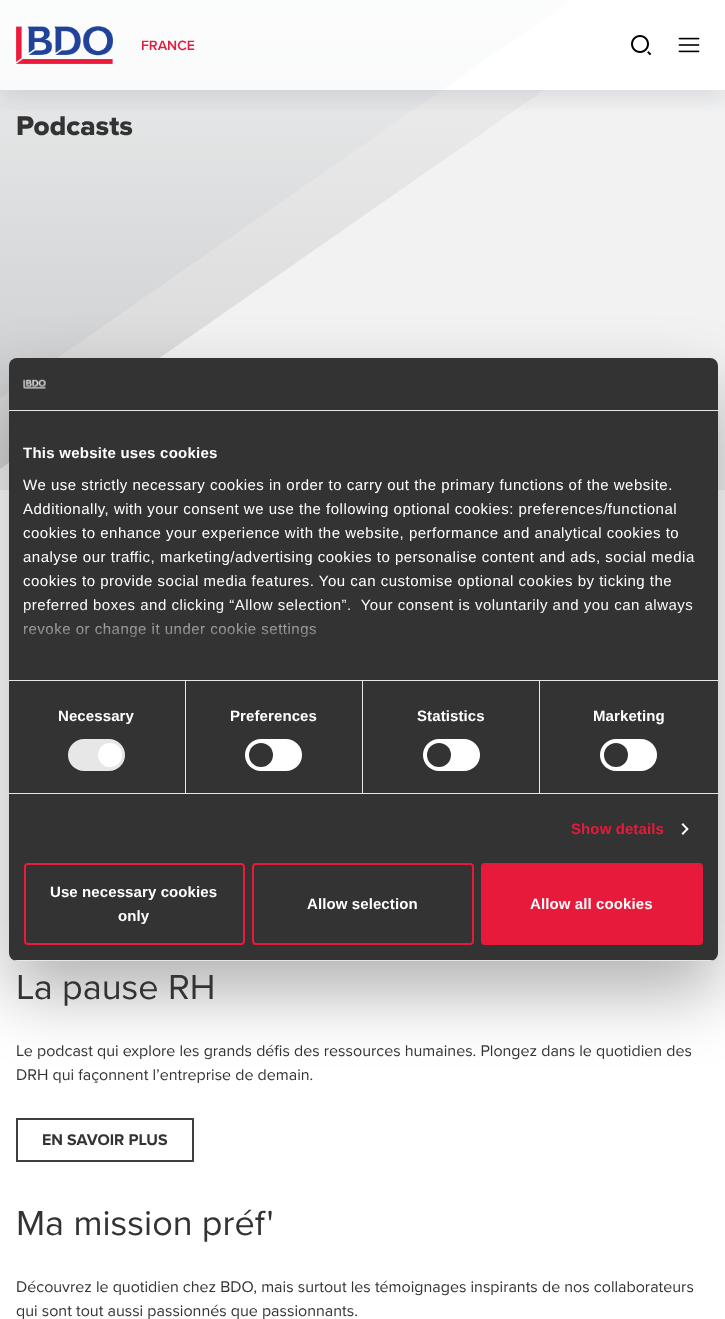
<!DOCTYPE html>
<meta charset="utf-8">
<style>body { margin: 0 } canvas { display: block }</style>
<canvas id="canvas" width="725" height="1319"></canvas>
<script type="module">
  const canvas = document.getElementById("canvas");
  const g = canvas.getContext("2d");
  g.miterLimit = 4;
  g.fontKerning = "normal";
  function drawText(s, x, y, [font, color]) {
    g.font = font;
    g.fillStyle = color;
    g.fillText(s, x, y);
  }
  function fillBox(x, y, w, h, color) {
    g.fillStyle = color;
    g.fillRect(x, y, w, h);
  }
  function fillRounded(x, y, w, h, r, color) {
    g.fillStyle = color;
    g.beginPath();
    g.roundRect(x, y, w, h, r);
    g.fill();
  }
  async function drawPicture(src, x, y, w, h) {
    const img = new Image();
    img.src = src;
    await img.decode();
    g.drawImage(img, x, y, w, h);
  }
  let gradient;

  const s1 = ["600 14px Proxima Nova", "#E81A3B"];
  const s2 = ["800 28px Proxima Nova", "#333333"];
  const s3 = ["bold 15px Liberation Sans", "#FFFFFF"];
  const s4 = ["15px Liberation Sans", "#FFFFFF"];
  const s5 = ["bold 15px Liberation Sans", "#E81A3B"];
  const s6 = ["36px Proxima Nova", "#333333"];
  const s7 = ["16px Proxima Nova", "#333333"];
  const s8 = ["bold 16px Proxima Nova", "#333333"];

  fillBox(0, 0, 725, 1319, "#FFFFFF");
  fillBox(0, 90, 725, 400, "#F2F2F2");
  g.save();
  g.beginPath();
  g.rect(0, 90, 725, 400);
  g.clip();
  gradient = g.createLinearGradient(363, 469, 363, -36);
  gradient.addColorStop(0, "#DDE0E2");
  gradient.addColorStop(0, "#D5D5D5");
  gradient.addColorStop(1, "#F2F2F2");
  g.fillStyle = gradient;
  g.beginPath();
  g.moveTo(0, -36);
  g.lineTo(725, -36);
  g.lineTo(0, 469);
  g.closePath();
  g.fill();
  g.restore();
  gradient = g.createLinearGradient(363, 398, 363, -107);
  gradient.addColorStop(0, "rgba(51, 51, 51, 0.09)");
  gradient.addColorStop(0, "rgba(99, 120, 137, 0.09)");
  gradient.addColorStop(1, "rgba(99, 120, 137, 0)");
  g.fillStyle = gradient;
  g.beginPath();
  g.moveTo(0, -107);
  g.lineTo(725, -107);
  g.lineTo(0, 398);
  g.closePath();
  g.fill();
  g.save();
  g.beginPath();
  g.rect(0, 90, 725, 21);
  g.clip();
  g.fillStyle = "rgba(91, 110, 127, 0.15)";
  g.filter = "blur(10px)";
  g.beginPath();
  g.rect(0, 10, 725, 90);
  g.fill();
  g.filter = "none";
  g.restore();
  await drawPicture("pic1.png", 16, 26, 97, 38);
  drawText("FRANCE", 141, 50, s1);
  await drawPicture("pic2.png", 631, 35, 21, 21);
  await drawPicture("pic3.png", 678, 37, 22, 16);
  drawText("Podcasts", 16, 135, s2);
  g.fillStyle = "rgba(0, 0, 0, 0.3)";
  g.filter = "blur(34px)";
  g.beginPath();
  g.roundRect(9, 390, 709, 603, 8);
  g.fill();
  g.filter = "none";
  fillRounded(9, 358, 709, 603, 8, "#333333");
  fillBox(9, 410, 709, 1, "#E7E7E7");
  await drawPicture("pic4.png", 23, 379, 23, 10);
  fillBox(9, 680, 709, 1, "#E7E7E7");
  g.letterSpacing = "0.25px";
  drawText("This website uses cookies", 23, 458, s3);
  g.letterSpacing = "0.5px";
  drawText("We use strictly necessary cookies in order to carry out the primary functions of the website.", 23, 490, s4);
  drawText("Additionally, with your consent we use the following optional cookies: preferences/functional", 23, 514, s4);
  drawText("cookies to enhance your experience with the website, performance and analytical cookies to", 23, 538, s4);
  drawText("analyse our traffic, marketing/advertising cookies to personalise content and ads, social media", 23, 562, s4);
  drawText("cookies to provide social media features. You can customise optional cookies by ticking the", 23, 586, s4);
  drawText("preferred boxes and clicking “Allow selection”.  Your consent is voluntarily and you can always", 23, 610, s4);
  drawText("revoke or change it under cookie settings", 23, 634, s4);
  gradient = g.createLinearGradient(357, 680, 357, 605);
  gradient.addColorStop(0, "#333333");
  gradient.addColorStop(0.5, "rgba(51, 51, 51, 0.8)");
  gradient.addColorStop(1, "rgba(51, 51, 51, 0)");
  g.fillStyle = gradient;
  g.fillRect(24, 606, 668, 32);
  fillBox(9, 793, 709, 1, "#E7E7E7");
  fillBox(185, 681, 1, 112, "#E7E7E7");
  g.letterSpacing = "0.1px";
  drawText("Necessary", 58, 721, s3);
  fillRounded(68, 739, 57, 32, 16, "#E7E7E7");
  g.fillStyle = "#FFFFFF";
  g.beginPath();
  g.arc(110, 755, 12, 0, Math.PI * 2);
  g.fill();
  fillBox(362, 681, 1, 112, "#E7E7E7");
  drawText("Preferences", 230, 721, s3);
  fillRounded(245, 739, 57, 32, 16, "#FFFFFF");
  g.fillStyle = "#333333";
  g.beginPath();
  g.arc(261, 755, 12, 0, Math.PI * 2);
  g.fill();
  fillBox(539, 681, 1, 112, "#E7E7E7");
  drawText("Statistics", 417, 721, s3);
  fillRounded(423, 739, 57, 32, 16, "#FFFFFF");
  g.fillStyle = "#333333";
  g.beginPath();
  g.arc(439, 755, 12, 0, Math.PI * 2);
  g.fill();
  drawText("Marketing", 593, 721, s3);
  fillRounded(600, 739, 57, 32, 16, "#FFFFFF");
  g.fillStyle = "#333333";
  g.beginPath();
  g.arc(616, 755, 12, 0, Math.PI * 2);
  g.fill();
  drawText("Show details", 571, 834, s5);
  g.fillStyle = "#FFFFFF";
  g.beginPath();
  g.moveTo(683, 823);
  g.lineTo(688.5, 829);
  g.lineTo(687.5, 830.5);
  g.lineTo(681.5, 824.5);
  g.closePath();
  g.fill();
  g.beginPath();
  g.moveTo(687.5, 827.5);
  g.lineTo(688.5, 829);
  g.lineTo(683, 835);
  g.lineTo(681.5, 833.5);
  g.closePath();
  g.fill();
  g.save();
  g.beginPath();
  g.roundRect(9, 358, 709, 603, 8);
  g.clip();
  fillBox(9, 960, 709, 1, "#E7E7E7");
  g.restore();
  g.beginPath();
  g.roundRect(25, 864, 219, 80, 3);
  g.strokeStyle = "#ED1A3B";
  g.lineWidth = 2;
  g.stroke();
  drawText("Use necessary cookies", 50, 897, s3);
  drawText("only", 118, 921, s3);
  g.beginPath();
  g.roundRect(253, 864, 220, 80, 3);
  g.strokeStyle = "#E81A3B";
  g.stroke();
  drawText("Allow selection", 307, 909, s3);
  g.fillStyle = "#E81A3B";
  g.beginPath();
  g.roundRect(482, 864, 220, 80, 3);
  g.fill();
  g.stroke();
  drawText("Allow all cookies", 530, 909, s3);
  g.letterSpacing = "0px";
  drawText("La pause RH", 16, 999, s6);
  drawText("Le podcast qui explore les grands défis des ressources humaines. Plongez dans le quotidien des", 16, 1056, s7);
  drawText("DRH qui façonnent l’entreprise de demain.", 16, 1080, s7);
  g.strokeStyle = "#404040";
  g.strokeRect(17, 1119, 176, 42);
  drawText("EN SAVOIR PLUS", 42, 1145, s8);
  drawText("Ma mission préf'", 16, 1235, s6);
  drawText("Découvrez le quotidien chez BDO, mais surtout les témoignages inspirants de nos collaborateurs", 16, 1292, s7);
  drawText("qui sont tout aussi passionnés que passionnants.", 16, 1316, s7);
</script>
